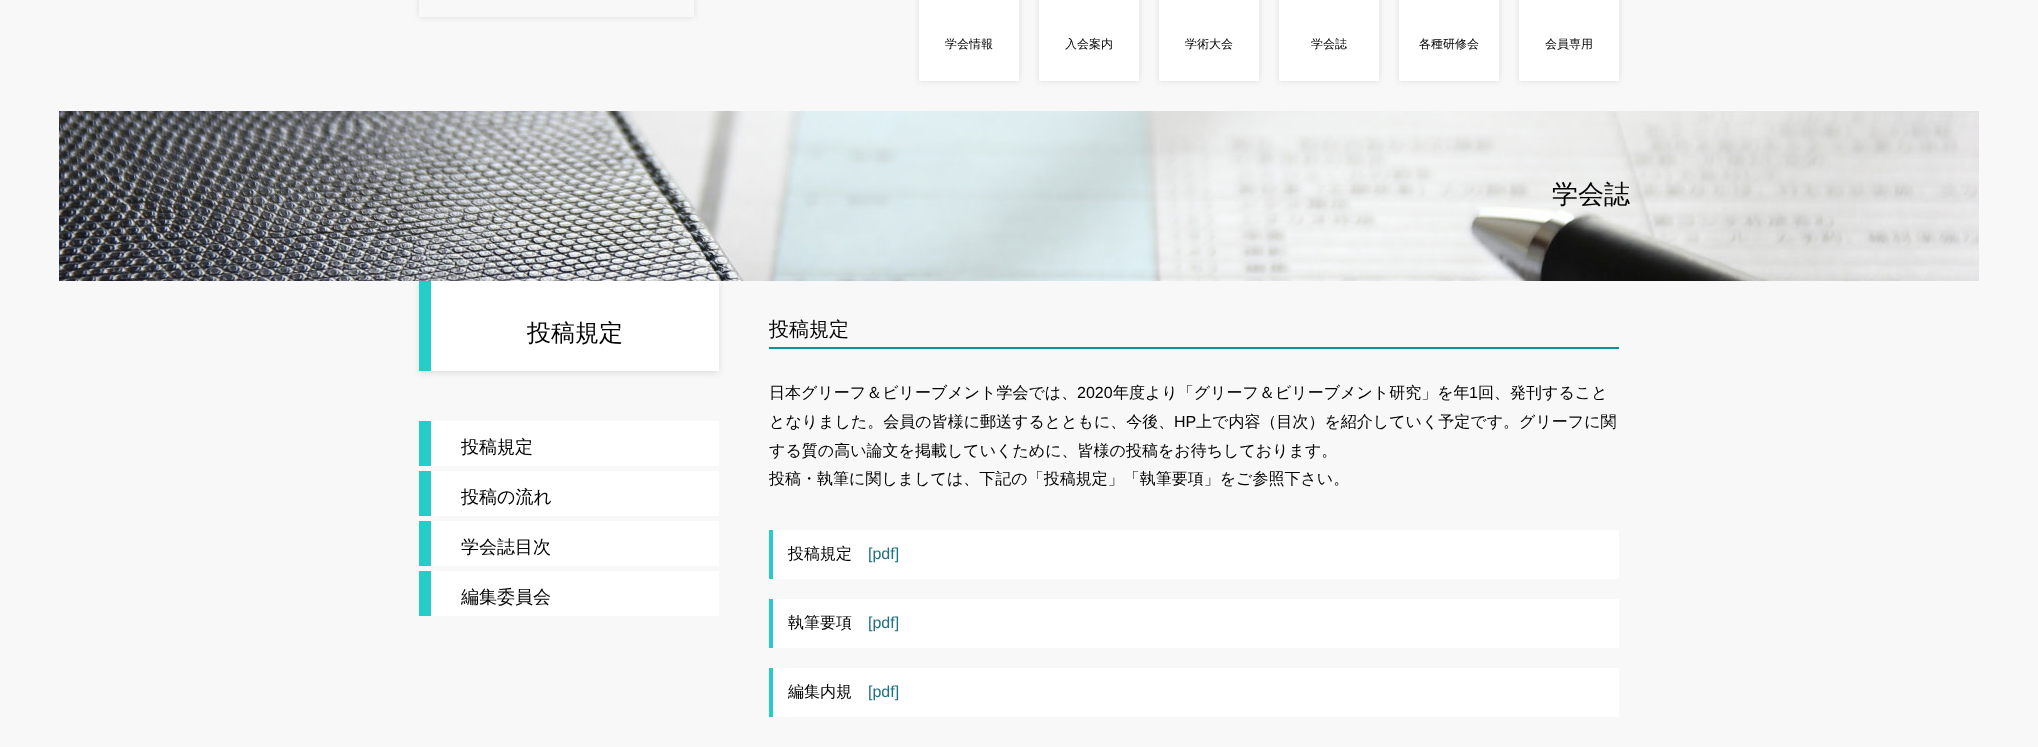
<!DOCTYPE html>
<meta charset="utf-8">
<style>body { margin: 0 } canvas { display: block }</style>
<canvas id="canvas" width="2038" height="747"></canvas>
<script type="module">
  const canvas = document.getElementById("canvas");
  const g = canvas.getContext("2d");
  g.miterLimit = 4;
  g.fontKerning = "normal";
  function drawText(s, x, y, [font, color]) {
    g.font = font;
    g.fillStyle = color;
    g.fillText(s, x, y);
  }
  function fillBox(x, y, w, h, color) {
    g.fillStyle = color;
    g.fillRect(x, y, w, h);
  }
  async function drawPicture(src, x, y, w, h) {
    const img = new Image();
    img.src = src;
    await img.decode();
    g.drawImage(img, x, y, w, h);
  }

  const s1 = ["500 12px WenQuanYi Zen Hei", "#000000"];
  const s2 = ["500 26px WenQuanYi Zen Hei", "#000000"];
  const s3 = ["500 24px WenQuanYi Zen Hei", "#000000"];
  const s4 = ["500 18px WenQuanYi Zen Hei", "#000000"];
  const s5 = ["500 20px WenQuanYi Zen Hei", "#000000"];
  const s6 = ["500 16px WenQuanYi Zen Hei", "#000000"];
  const s7 = ["16px Liberation Sans", "#000000"];
  const s8 = ["16px Liberation Sans", "#207081"];

  fillBox(0, 0, 2038, 747, "#F8F8F8");
  g.save();
  g.beginPath();
  g.moveTo(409, 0);
  g.lineTo(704, 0);
  g.lineTo(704, 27);
  g.lineTo(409, 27);
  g.closePath();
  g.moveTo(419, -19);
  g.lineTo(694, -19);
  g.lineTo(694, 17);
  g.lineTo(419, 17);
  g.closePath();
  g.clip("evenodd");
  g.fillStyle = "#DDDDDD";
  g.filter = "blur(3px)";
  g.beginPath();
  g.rect(419, -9, 275, 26);
  g.fill();
  g.filter = "none";
  g.restore();
  g.fillStyle = "#DDDDDD";
  g.filter = "blur(3px)";
  g.beginPath();
  g.rect(919, -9, 100, 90);
  g.fill();
  g.filter = "none";
  fillBox(919, 0, 100, 81, "#FFFFFF");
  drawText("学会情報", 945, 48, s1);
  g.fillStyle = "#DDDDDD";
  g.filter = "blur(3px)";
  g.beginPath();
  g.rect(1039, -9, 100, 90);
  g.fill();
  g.filter = "none";
  fillBox(1039, 0, 100, 81, "#FFFFFF");
  drawText("入会案内", 1065, 48, s1);
  g.fillStyle = "#DDDDDD";
  g.filter = "blur(3px)";
  g.beginPath();
  g.rect(1159, -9, 100, 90);
  g.fill();
  g.filter = "none";
  fillBox(1159, 0, 100, 81, "#FFFFFF");
  drawText("学術大会", 1185, 48, s1);
  g.fillStyle = "#DDDDDD";
  g.filter = "blur(3px)";
  g.beginPath();
  g.rect(1279, -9, 100, 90);
  g.fill();
  g.filter = "none";
  fillBox(1279, 0, 100, 81, "#FFFFFF");
  drawText("学会誌", 1311, 48, s1);
  g.fillStyle = "#DDDDDD";
  g.filter = "blur(3px)";
  g.beginPath();
  g.rect(1399, -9, 100, 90);
  g.fill();
  g.filter = "none";
  fillBox(1399, 0, 100, 81, "#FFFFFF");
  drawText("各種研修会", 1419, 48, s1);
  g.fillStyle = "#DDDDDD";
  g.filter = "blur(3px)";
  g.beginPath();
  g.rect(1519, -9, 100, 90);
  g.fill();
  g.filter = "none";
  fillBox(1519, 0, 100, 81, "#FFFFFF");
  drawText("会員専用", 1545, 48, s1);
  await drawPicture("pic1.png", 59, 111, 1920, 170);
  drawText("学会誌", 1552, 203, s2);
  g.fillStyle = "#DDDDDD";
  g.filter = "blur(3px)";
  g.beginPath();
  g.rect(419, 283, 300, 90);
  g.fill();
  g.filter = "none";
  fillBox(431, 281, 288, 90, "#FFFFFF");
  fillBox(419, 281, 12, 90, "#25CDC8");
  drawText("投稿規定", 527, 341, s3);
  fillBox(431, 421, 288, 45, "#FFFFFF");
  fillBox(419, 421, 12, 45, "#25CDC8");
  drawText("投稿規定", 461, 453, s4);
  fillBox(431, 471, 288, 45, "#FFFFFF");
  fillBox(419, 471, 12, 45, "#25CDC8");
  drawText("投稿の流れ", 461, 503, s4);
  fillBox(431, 521, 288, 45, "#FFFFFF");
  fillBox(419, 521, 12, 45, "#25CDC8");
  drawText("学会誌目次", 461, 553, s4);
  fillBox(431, 571, 288, 45, "#FFFFFF");
  fillBox(419, 571, 12, 45, "#25CDC8");
  drawText("編集委員会", 461, 603, s4);
  fillBox(769, 347, 850, 2, "#0B939A");
  drawText("投稿規定", 769, 336, s5);
  drawText("日本グリーフ＆ビリーブメント学会では、", 769, 398, s6);
  drawText("2020", 1077, 398, s7);
  drawText("年度より「グリーフ＆ビリーブメント研究」を年", 1113, 398, s6);
  drawText("1", 1469, 398, s7);
  drawText("回、発刊すること", 1478, 398, s6);
  drawText("となりました。会員の皆様に郵送するとともに、今後、", 769, 427, s6);
  drawText("HP", 1174, 427, s7);
  drawText("上で内容（目次）を紹介していく予定です。グリーフに関", 1196, 427, s6);
  drawText("する質の高い論文を掲載していくために、皆様の投稿をお待ちしております。", 769, 456, s6);
  drawText("投稿・執筆に関しましては、下記の「投稿規定」「執筆要項」をご参照下さい。", 769, 484, s6);
  fillBox(773, 530, 846, 49, "#FFFFFF");
  fillBox(769, 530, 4, 49, "#25CDC8");
  drawText("投稿規定", 788, 559, s6);
  drawText("[pdf]", 868, 559, s8);
  fillBox(773, 599, 846, 49, "#FFFFFF");
  fillBox(769, 599, 4, 49, "#25CDC8");
  drawText("執筆要項", 788, 628, s6);
  drawText("[pdf]", 868, 628, s8);
  fillBox(773, 668, 846, 49, "#FFFFFF");
  fillBox(769, 668, 4, 49, "#25CDC8");
  drawText("編集内規", 788, 697, s6);
  drawText("[pdf]", 868, 697, s8);
</script>
